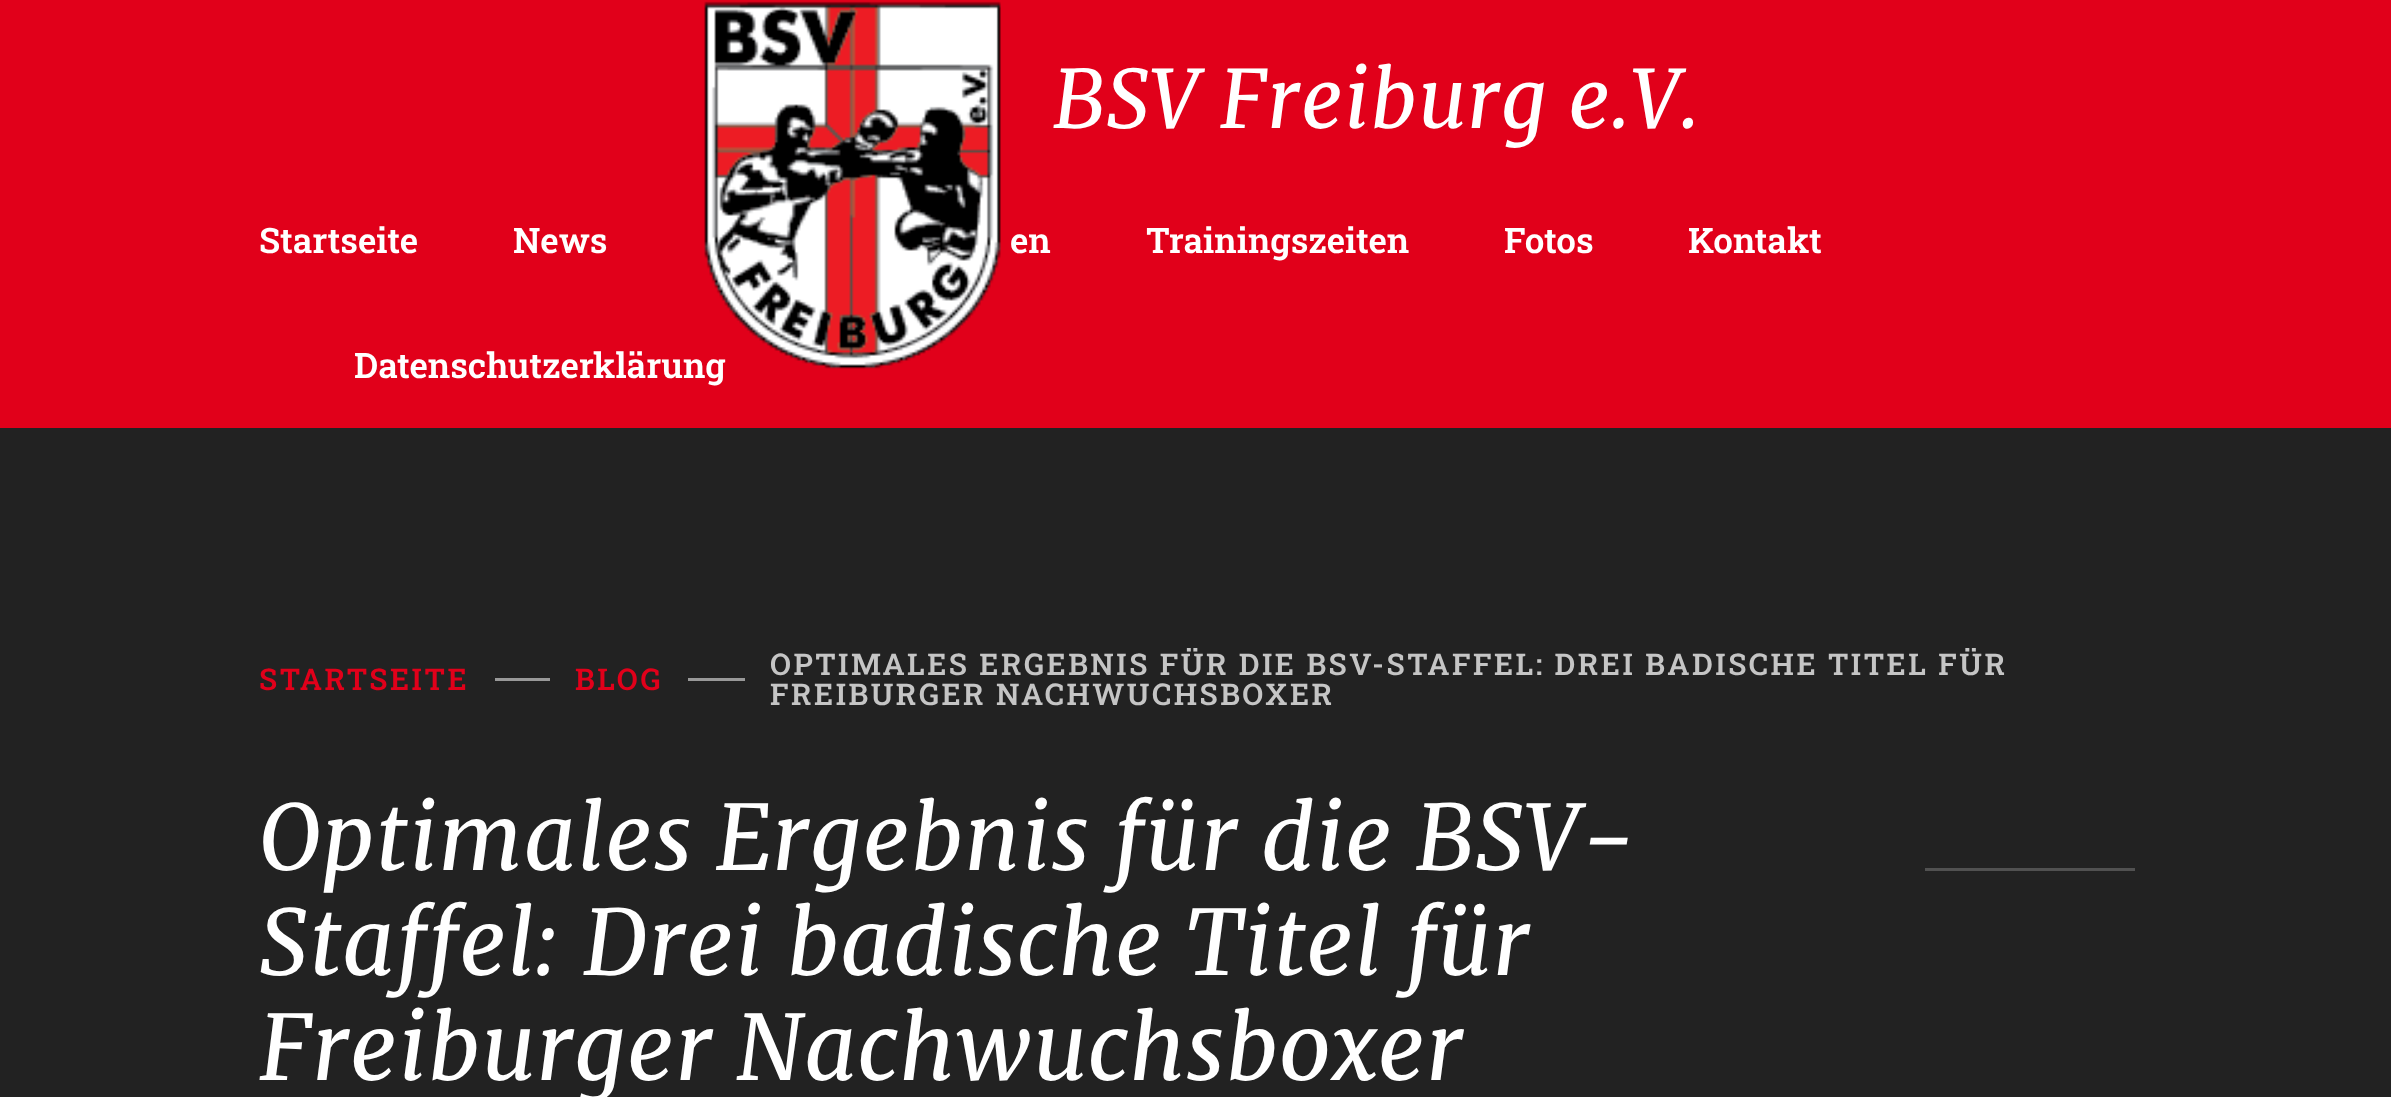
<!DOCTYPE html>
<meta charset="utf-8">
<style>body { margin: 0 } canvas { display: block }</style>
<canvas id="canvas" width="2391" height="1097"></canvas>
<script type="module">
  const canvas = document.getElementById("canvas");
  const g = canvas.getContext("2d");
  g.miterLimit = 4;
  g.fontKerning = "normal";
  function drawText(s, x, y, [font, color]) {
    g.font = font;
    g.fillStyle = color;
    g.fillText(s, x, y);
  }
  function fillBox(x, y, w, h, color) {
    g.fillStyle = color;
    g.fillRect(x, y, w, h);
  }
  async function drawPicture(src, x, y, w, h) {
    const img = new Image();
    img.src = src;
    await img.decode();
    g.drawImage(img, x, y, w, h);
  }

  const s1 = ["600 35px Roboto Slab", "#FFFFFF"];
  const s2 = ["italic 80px Merriweather", "#FFFFFF"];
  const s3 = ["600 30px Roboto Slab", "#E1001A"];
  const s4 = ["600 30px Roboto Slab", "#C5C5C5"];
  const s5 = ["italic 90px Merriweather", "#FFFFFF"];

  fillBox(0, 0, 2391, 1097, "#222222");
  fillBox(0, 0, 2391, 428, "#E1001A");
  drawText("Datenschutzerklärung", 354, 378, s1);
  await drawPicture("pic1.png", 704, 1, 297, 368);
  g.letterSpacing = "1.25px";
  drawText("BSV Freiburg e.V.", 1053, 128, s2);
  g.letterSpacing = "0px";
  drawText("Startseite", 259, 253, s1);
  drawText("News", 513, 253, s1);
  drawText("en", 1010, 253, s1);
  drawText("Trainingszeiten", 1146, 253, s1);
  drawText("Fotos", 1504, 253, s1);
  drawText("Kontakt", 1688, 253, s1);
  g.letterSpacing = "2.5px";
  drawText("STARTSEITE", 259, 690, s3);
  fillBox(495, 678, 55, 3, "#999999");
  drawText("BLOG", 575, 690, s3);
  fillBox(688, 678, 57, 3, "#999999");
  drawText("OPTIMALES ERGEBNIS FÜR DIE BSV-STAFFEL: DREI BADISCHE TITEL FÜR", 770, 675, s4);
  drawText("FREIBURGER NACHWUCHSBOXER", 770, 705, s4);
  g.letterSpacing = "1.25px";
  drawText("Optimales Ergebnis für die BSV-", 259, 870, s5);
  drawText("Staffel: Drei badische Titel für", 259, 975, s5);
  drawText("Freiburger Nachwuchsboxer", 259, 1080, s5);
  fillBox(1925, 868, 210, 3, "#515151");
</script>
